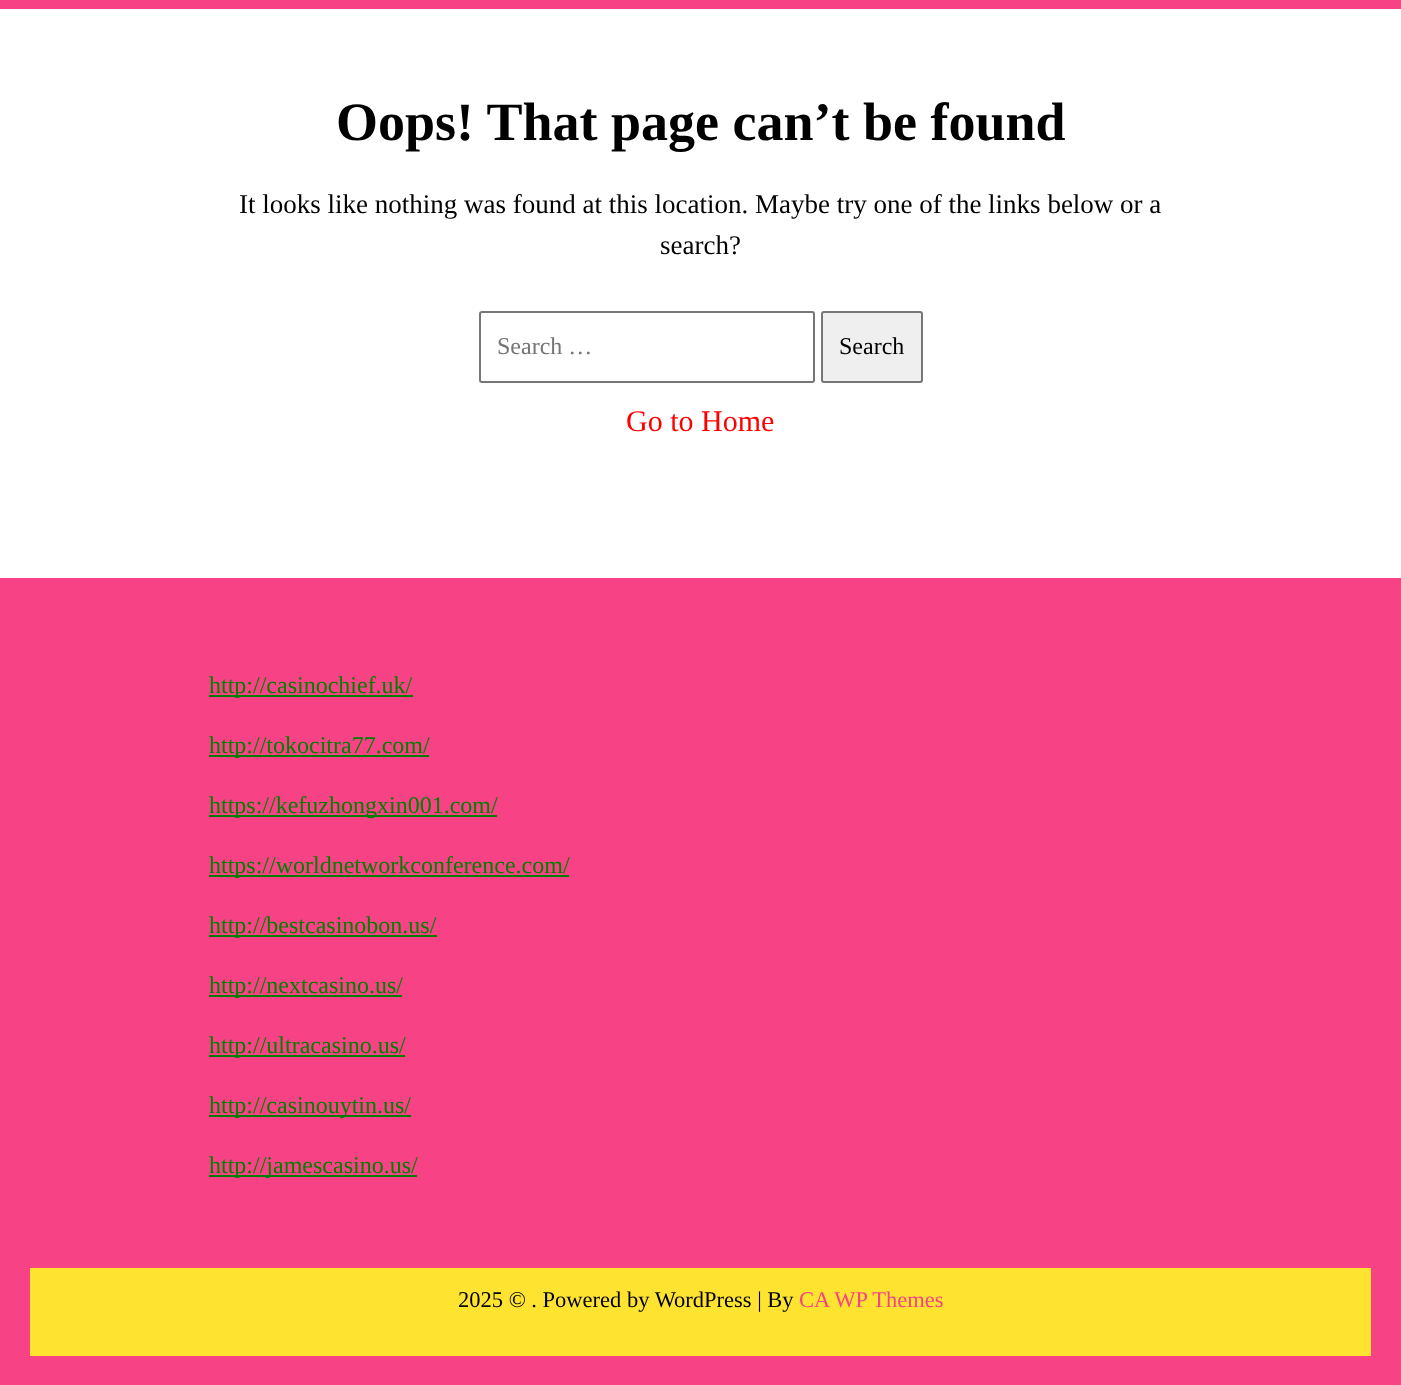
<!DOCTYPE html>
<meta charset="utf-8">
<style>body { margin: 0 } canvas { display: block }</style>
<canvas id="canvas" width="1401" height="1385"></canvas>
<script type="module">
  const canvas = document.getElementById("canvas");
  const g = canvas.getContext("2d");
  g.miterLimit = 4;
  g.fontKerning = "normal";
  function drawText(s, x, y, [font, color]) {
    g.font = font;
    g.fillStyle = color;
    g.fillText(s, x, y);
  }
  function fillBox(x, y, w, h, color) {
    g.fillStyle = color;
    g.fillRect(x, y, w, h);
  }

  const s1 = ["bold 54px Liberation Serif", "#000000"];
  const s2 = ["27px Liberation Serif", "#000000"];
  const s3 = ["24px Liberation Serif", "#757575"];
  const s4 = ["24px Liberation Serif", "#000000"];
  const s5 = ["30px Liberation Serif", "#FF0000"];
  const s6 = ["24px Liberation Serif", "#008000"];
  const s7 = ["22.5px Liberation Serif", "#000000"];
  const s8 = ["22.5px Liberation Serif", "#F74385"];

  fillBox(0, 0, 1401, 1385, "#FFFFFF");
  fillBox(0, 0, 1401, 9, "#F74285");
  drawText("Oops! That page can’t be found", 336, 140, s1);
  drawText("It looks like nothing was found at this location. Maybe try one of the links below or a", 239, 213, s2);
  drawText("search?", 660, 254, s2);
  g.beginPath();
  g.roundRect(480, 312, 334, 70, 2);
  g.strokeStyle = "#767676";
  g.lineWidth = 2;
  g.stroke();
  drawText("Search …", 497, 354, s3);
  g.fillStyle = "#EFEFEF";
  g.beginPath();
  g.roundRect(822, 312, 100, 70, 2);
  g.fill();
  g.stroke();
  drawText("Search", 839, 354, s4);
  drawText("Go to Home", 626, 431, s5);
  fillBox(0, 578, 1401, 807, "#F74385");
  fillBox(209, 695, 204, 2, "#008000");
  drawText("http://casinochief.uk/", 209, 693, s6);
  fillBox(209, 755, 220, 2, "#008000");
  drawText("http://tokocitra77.com/", 209, 753, s6);
  fillBox(209, 815, 288, 2, "#008000");
  drawText("https://kefuzhongxin001.com/", 209, 813, s6);
  fillBox(209, 875, 360, 2, "#008000");
  drawText("https://worldnetworkconference.com/", 209, 873, s6);
  fillBox(209, 935, 228, 2, "#008000");
  drawText("http://bestcasinobon.us/", 209, 933, s6);
  fillBox(209, 995, 193, 2, "#008000");
  drawText("http://nextcasino.us/", 209, 993, s6);
  fillBox(209, 1055, 196, 2, "#008000");
  drawText("http://ultracasino.us/", 209, 1053, s6);
  fillBox(209, 1115, 202, 2, "#008000");
  drawText("http://casinouytin.us/", 209, 1113, s6);
  fillBox(209, 1175, 208, 2, "#008000");
  drawText("http://jamescasino.us/", 209, 1173, s6);
  fillBox(30, 1268, 1341, 88, "#FFE331");
  drawText("2025 © . Powered by WordPress | By", 458, 1307, s7);
  drawText("CA WP Themes", 799, 1307, s8);
</script>
